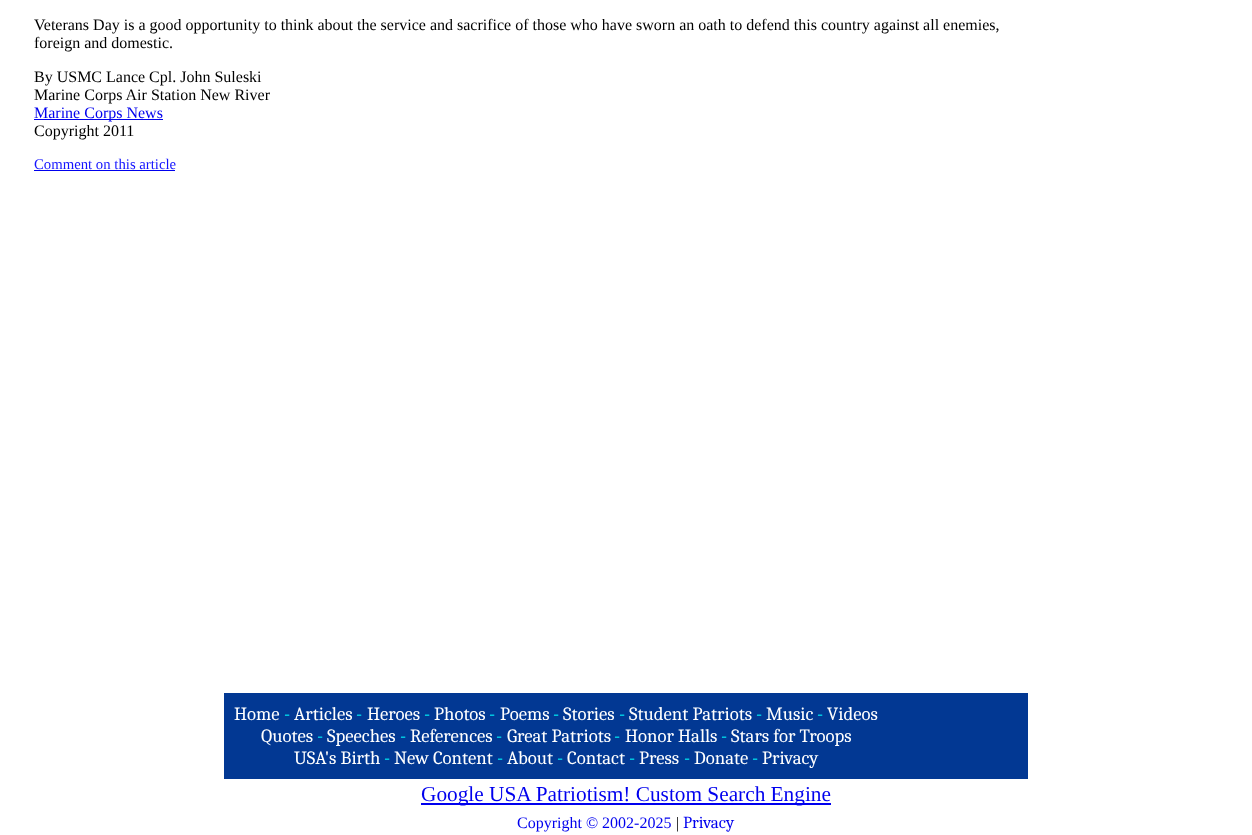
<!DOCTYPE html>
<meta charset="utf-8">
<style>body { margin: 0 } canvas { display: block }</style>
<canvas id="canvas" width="1252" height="835"></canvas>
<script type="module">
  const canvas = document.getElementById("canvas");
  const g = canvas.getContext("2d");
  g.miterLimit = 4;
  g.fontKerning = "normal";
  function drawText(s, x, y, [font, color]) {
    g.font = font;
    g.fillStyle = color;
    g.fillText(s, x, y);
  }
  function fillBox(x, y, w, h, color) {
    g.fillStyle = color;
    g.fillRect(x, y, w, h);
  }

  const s1 = ["16px Liberation Serif", "#000000"];
  const s2 = ["16px Liberation Serif", "#0000EE"];
  const s3 = ["14.75px Liberation Serif", "#1414FF"];
  const s4 = ["18.75px Caladea", "#FFFFFF"];
  const s5 = ["18.75px Caladea", "#00FFFF"];
  const s6 = ["21.3px Liberation Serif", "#0000EE"];
  const s7 = ["17px Caladea", "#0000EE"];

  fillBox(0, 0, 1252, 835, "#FFFFFF");
  drawText("Veterans Day is a good opportunity to think about the service and sacrifice of those who have sworn an oath to defend this country against all enemies,", 34, 30, s1);
  drawText("foreign and domestic.", 34, 48, s1);
  drawText("By USMC Lance Cpl. John Suleski", 34, 82, s1);
  drawText("Marine Corps Air Station New River", 34, 100, s1);
  fillBox(34, 119, 129, 1, "#0000EE");
  drawText("Marine Corps News", 34, 118, s2);
  drawText("Copyright 2011", 34, 136, s1);
  drawText("Comment on this article", 34, 169, s3);
  fillBox(34, 170, 141, 1, "#0000EE");
  fillBox(224, 693, 804, 86, "#023893");
  drawText("Home", 234, 720, s4);
  drawText("-", 284, 720, s5);
  drawText("Articles", 294, 720, s4);
  drawText("-", 356, 720, s5);
  drawText("Heroes", 367, 720, s4);
  drawText("-", 424, 720, s5);
  drawText("Photos", 434, 720, s4);
  drawText("-", 489, 720, s5);
  drawText("Poems", 500, 720, s4);
  drawText("-", 553, 720, s5);
  drawText("Stories", 563, 720, s4);
  drawText("-", 619, 720, s5);
  drawText("Student Patriots", 629, 720, s4);
  drawText("-", 756, 720, s5);
  drawText("Music", 766, 720, s4);
  drawText("-", 817, 720, s5);
  drawText("Videos", 827, 720, s4);
  drawText("Quotes", 261, 742, s4);
  drawText("-", 317, 742, s5);
  drawText("Speeches", 327, 742, s4);
  drawText("-", 400, 742, s5);
  drawText("References", 410, 742, s4);
  drawText("-", 496, 742, s5);
  drawText("Great Patriots", 507, 742, s4);
  drawText("-", 614, 742, s5);
  drawText("Honor Halls", 625, 742, s4);
  drawText("-", 721, 742, s5);
  drawText("Stars for Troops", 731, 742, s4);
  drawText("USA's Birth", 294, 764, s4);
  drawText("-", 384, 764, s5);
  drawText("New Content", 394, 764, s4);
  drawText("-", 497, 764, s5);
  drawText("About", 507, 764, s4);
  drawText("-", 557, 764, s5);
  drawText("Contact", 567, 764, s4);
  drawText("-", 629, 764, s5);
  drawText("Press", 639, 764, s4);
  drawText("-", 684, 764, s5);
  drawText("Donate", 694, 764, s4);
  drawText("-", 752, 764, s5);
  drawText("Privacy", 762, 764, s4);
  fillBox(421, 803, 410, 2, "#0000EE");
  drawText("Google USA Patriotism! Custom Search Engine", 421, 801, s6);
  drawText("Copyright © 2002-2025", 517, 828, s2);
  drawText("|", 676, 828, s1);
  drawText("Privacy", 683, 828, s7);
</script>
